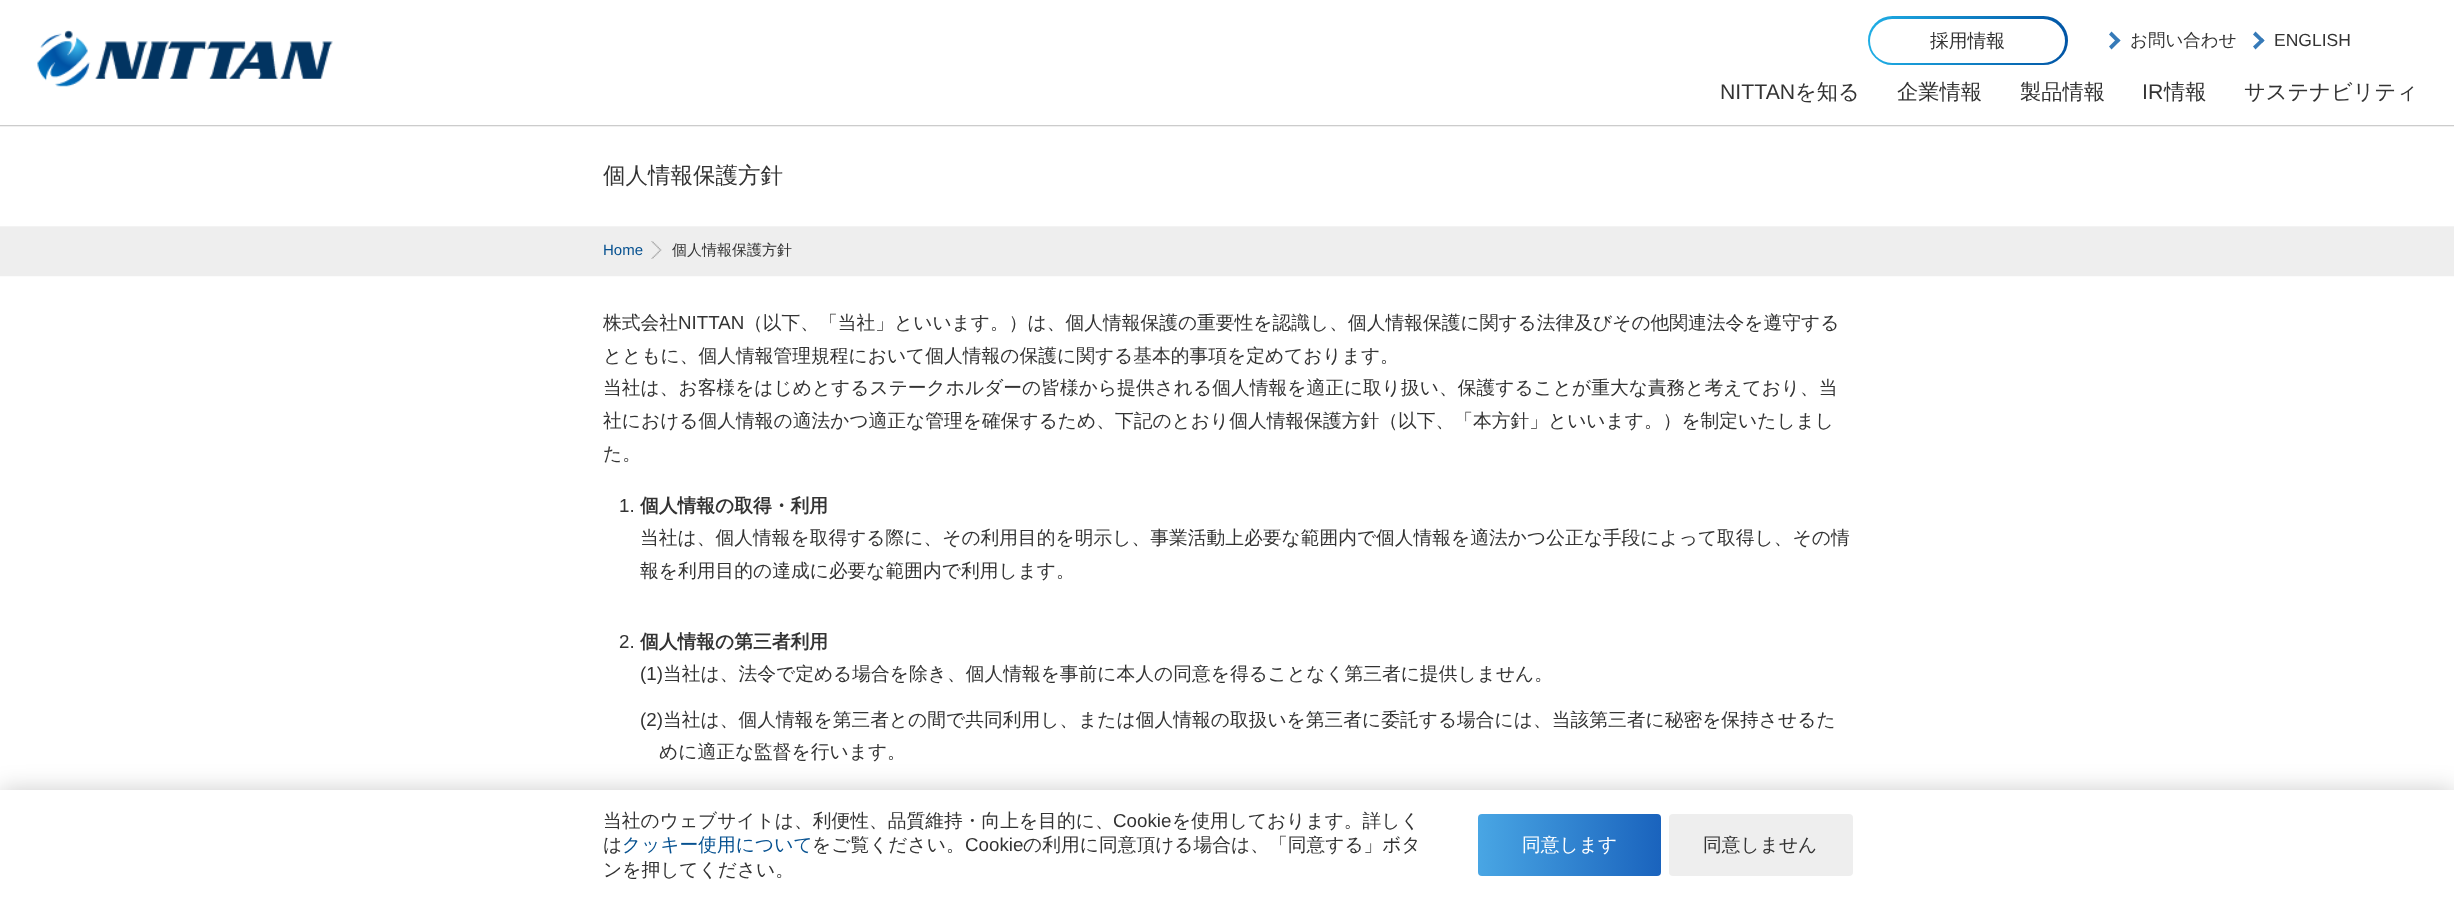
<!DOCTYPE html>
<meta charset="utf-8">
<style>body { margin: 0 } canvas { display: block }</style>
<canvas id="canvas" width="2454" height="900"></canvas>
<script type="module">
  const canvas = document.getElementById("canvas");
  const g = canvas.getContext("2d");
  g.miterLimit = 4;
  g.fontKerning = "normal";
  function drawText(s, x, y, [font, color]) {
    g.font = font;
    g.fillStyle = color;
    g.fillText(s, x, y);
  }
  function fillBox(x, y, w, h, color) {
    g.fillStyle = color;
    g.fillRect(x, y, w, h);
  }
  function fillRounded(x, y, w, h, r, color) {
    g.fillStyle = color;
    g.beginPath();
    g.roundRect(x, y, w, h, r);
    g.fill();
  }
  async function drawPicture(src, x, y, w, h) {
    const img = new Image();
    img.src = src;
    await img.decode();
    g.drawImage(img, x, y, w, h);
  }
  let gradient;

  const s1 = ["500 18.75px WenQuanYi Zen Hei", "#333333"];
  const s2 = ["500 17.5px WenQuanYi Zen Hei", "#333333"];
  const s3 = ["17.5px Liberation Sans", "#333333"];
  const s4 = ["21.25px Liberation Sans", "#333333"];
  const s5 = ["500 21.25px WenQuanYi Zen Hei", "#333333"];
  const s6 = ["500 22.5px WenQuanYi Zen Hei", "#333333"];
  const s7 = ["15px Liberation Sans", "#065190"];
  const s8 = ["500 15px WenQuanYi Zen Hei", "#333333"];
  const s9 = ["18.75px Liberation Sans", "#333333"];
  const s10 = ["bold 18.75px WenQuanYi Zen Hei", "#333333"];
  const s11 = ["500 18.75px WenQuanYi Zen Hei", "#065190"];
  const s12 = ["500 18.75px WenQuanYi Zen Hei", "#FFFFFF"];

  fillBox(0, 0, 2454, 900, "#FFFFFF");
  await drawPicture("pic1.png", 37, 30, 296, 57);
  gradient = g.createLinearGradient(1868, 41, 2068, 41);
  gradient.addColorStop(0, "#1FAEE5");
  gradient.addColorStop(1, "#0155A5");
  g.fillStyle = gradient;
  g.beginPath();
  g.roundRect(1868, 16, 200, 49, 24.5);
  g.fill();
  fillRounded(1870, 19, 195, 44, 22, "#FFFFFF");
  drawText("採用情報", 1930, 47, s1);
  g.fillStyle = "#367AB8";
  g.beginPath();
  g.moveTo(2111.5, 31.5);
  g.lineTo(2120.5, 40.5);
  g.lineTo(2117.5, 43);
  g.lineTo(2109, 34.5);
  g.closePath();
  g.fill();
  g.beginPath();
  g.moveTo(2117.5, 38);
  g.lineTo(2120.5, 40.5);
  g.lineTo(2111.5, 49.5);
  g.lineTo(2109, 46.5);
  g.closePath();
  g.fill();
  drawText("お問い合わせ", 2130, 46, s2);
  g.fillStyle = "#367AB8";
  g.beginPath();
  g.moveTo(2255.5, 31.5);
  g.lineTo(2264.5, 40.5);
  g.lineTo(2262, 43);
  g.lineTo(2253, 34.5);
  g.closePath();
  g.fill();
  g.beginPath();
  g.moveTo(2262, 38);
  g.lineTo(2264.5, 40.5);
  g.lineTo(2255.5, 49.5);
  g.lineTo(2253, 46.5);
  g.closePath();
  g.fill();
  drawText("ENGLISH", 2274, 46, s3);
  drawText("NITTAN", 1720, 99, s4);
  drawText("を知る", 1795, 99, s5);
  drawText("企業情報", 1897, 99, s5);
  drawText("製品情報", 2020, 99, s5);
  drawText("IR", 2142, 99, s4);
  drawText("情報", 2164, 99, s5);
  drawText("サステナビリティ", 2244, 99, s5);
  await drawPicture("pic2.png", 0, 125, 2454, 152);
  drawText("個人情報保護方針", 603, 183, s6);
  drawText("Home", 603, 255, s7);
  await drawPicture("pic3.png", 651, 241, 11, 18);
  drawText("個人情報保護方針", 672, 255, s8);
  drawText("株式会社", 603, 329, s1);
  drawText("NITTAN", 678, 329, s9);
  drawText("（以下、「当社」といいます。）は、個人情報保護の重要性を認識し、個人情報保護に関する法律及びその他関連法令を遵守する", 744, 329, s1);
  drawText("とともに、個人情報管理規程において個人情報の保護に関する基本的事項を定めております。", 603, 362, s1);
  drawText("当社は、お客様をはじめとするステークホルダーの皆様から提供される個人情報を適正に取り扱い、保護することが重大な責務と考えており、当", 603, 394, s1);
  drawText("社における個人情報の適法かつ適正な管理を確保するため、下記のとおり個人情報保護方針（以下、「本方針」といいます。）を制定いたしまし", 603, 427, s1);
  drawText("た。", 603, 460, s1);
  drawText("1.", 619, 512, s9);
  drawText("個人情報の取得・利用", 640, 512, s10);
  drawText("当社は、個人情報を取得する際に、その利用目的を明示し、事業活動上必要な範囲内で個人情報を適法かつ公正な手段によって取得し、その情", 640, 544, s1);
  drawText("報を利用目的の達成に必要な範囲内で利用します。", 640, 577, s1);
  drawText("2.", 619, 648, s9);
  drawText("個人情報の第三者利用", 640, 648, s10);
  drawText("(1)", 640, 680, s9);
  drawText("当社は、法令で定める場合を除き、個人情報を事前に本人の同意を得ることなく第三者に提供しません。", 663, 680, s1);
  drawText("(2)", 640, 726, s9);
  drawText("当社は、個人情報を第三者との間で共同利用し、または個人情報の取扱いを第三者に委託する場合には、当該第三者に秘密を保持させるた", 663, 726, s1);
  drawText("めに適正な監督を行います。", 659, 758, s1);
  g.fillStyle = "rgba(0, 0, 0, 0.2)";
  g.filter = "blur(12.5px)";
  g.beginPath();
  g.rect(0, 790, 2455, 110);
  g.fill();
  g.filter = "none";
  fillBox(0, 790, 2454, 110, "#FFFFFF");
  drawText("当社のウェブサイトは、利便性、品質維持・向上を目的に、", 603, 827, s1);
  drawText("Cookie", 1113, 827, s9);
  drawText("を使用しております。詳しく", 1172, 827, s1);
  drawText("は", 603, 851, s1);
  drawText("クッキー使用について", 622, 851, s11);
  drawText("をご覧ください。", 812, 851, s1);
  drawText("Cookie", 965, 851, s9);
  drawText("の利用に同意頂ける場合は、「同意する」ボタ", 1023, 851, s1);
  drawText("ンを押してください。", 603, 876, s1);
  gradient = g.createLinearGradient(1478, 845, 1661, 845);
  gradient.addColorStop(0, "#49A6E4");
  gradient.addColorStop(1, "#1A63BD");
  g.fillStyle = gradient;
  g.beginPath();
  g.roundRect(1478, 814, 183, 62, 4);
  g.fill();
  drawText("同意します", 1522, 851, s12);
  fillRounded(1669, 814, 184, 62, 4, "#EEEEEE");
  drawText("同意しません", 1703, 851, s1);
</script>
